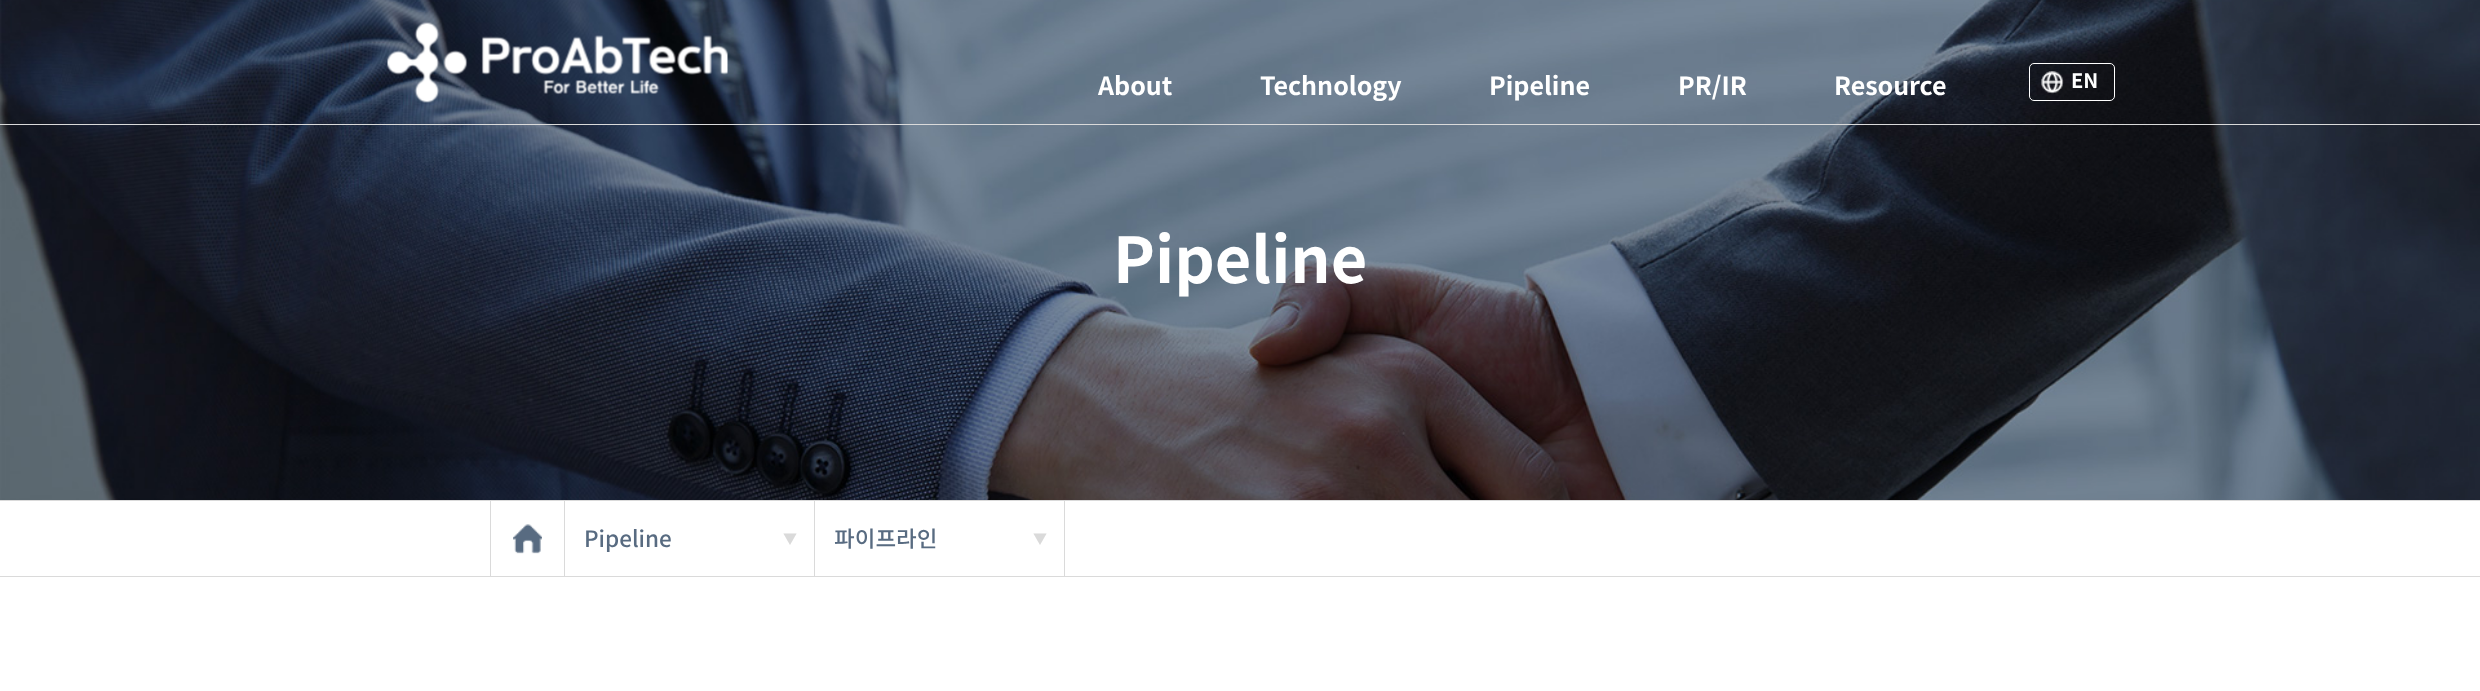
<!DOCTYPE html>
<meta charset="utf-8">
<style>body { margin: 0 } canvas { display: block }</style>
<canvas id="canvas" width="2480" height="691"></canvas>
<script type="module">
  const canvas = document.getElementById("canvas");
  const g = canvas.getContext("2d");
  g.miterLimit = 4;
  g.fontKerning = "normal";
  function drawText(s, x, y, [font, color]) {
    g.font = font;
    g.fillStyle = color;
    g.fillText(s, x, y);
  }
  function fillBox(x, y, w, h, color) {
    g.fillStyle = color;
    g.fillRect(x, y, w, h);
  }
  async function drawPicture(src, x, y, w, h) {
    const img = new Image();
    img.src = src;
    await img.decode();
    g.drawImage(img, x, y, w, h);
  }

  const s1 = ["bold 25px Noto Sans KR", "#FFFFFF"];
  const s2 = ["bold 20px Noto Sans KR", "#FFFFFF"];
  const s3 = ["bold 63px Noto Sans KR", "#FFFFFF"];
  const s4 = ["500 22.5px Noto Sans KR", "#586B81"];
  const s5 = ["500 14px Noto Sans KR", "#DADADA"];

  fillBox(0, 0, 2480, 691, "#FFFFFF");
  await drawPicture("pic3.png", 0, 0, 2480, 500);
  fillBox(0, 124, 2480, 1, "#DADADA");
  await drawPicture("pic1.png", 387, 22, 341, 81);
  drawText("About", 1098, 95, s1);
  drawText("Technology", 1260, 95, s1);
  drawText("Pipeline", 1489, 95, s1);
  drawText("PR/IR", 1678, 95, s1);
  drawText("Resource", 1834, 95, s1);
  g.beginPath();
  g.roundRect(2029.5, 63.5, 85, 37, 4.5);
  g.strokeStyle = "#FFFFFF";
  g.stroke();
  await drawPicture("pic2.png", 2041, 71, 23, 23);
  drawText("EN", 2071, 88, s2);
  drawText("Pipeline", 1113, 283, s3);
  fillBox(0, 500, 2480, 1, "#DADADA");
  fillBox(0, 576, 2480, 1, "#DADADA");
  fillBox(564, 501, 1, 75, "#DADADA");
  fillBox(490, 501, 1, 75, "#DADADA");
  await drawPicture("pic4.png", 513, 524, 29, 30);
  fillBox(814, 501, 1, 75, "#DADADA");
  drawText("Pipeline", 584, 547, s4);
  drawText("▼", 783, 544, s5);
  fillBox(1064, 501, 1, 75, "#DADADA");
  drawText("파이프라인", 834, 547, s4);
  drawText("▼", 1033, 544, s5);
</script>
